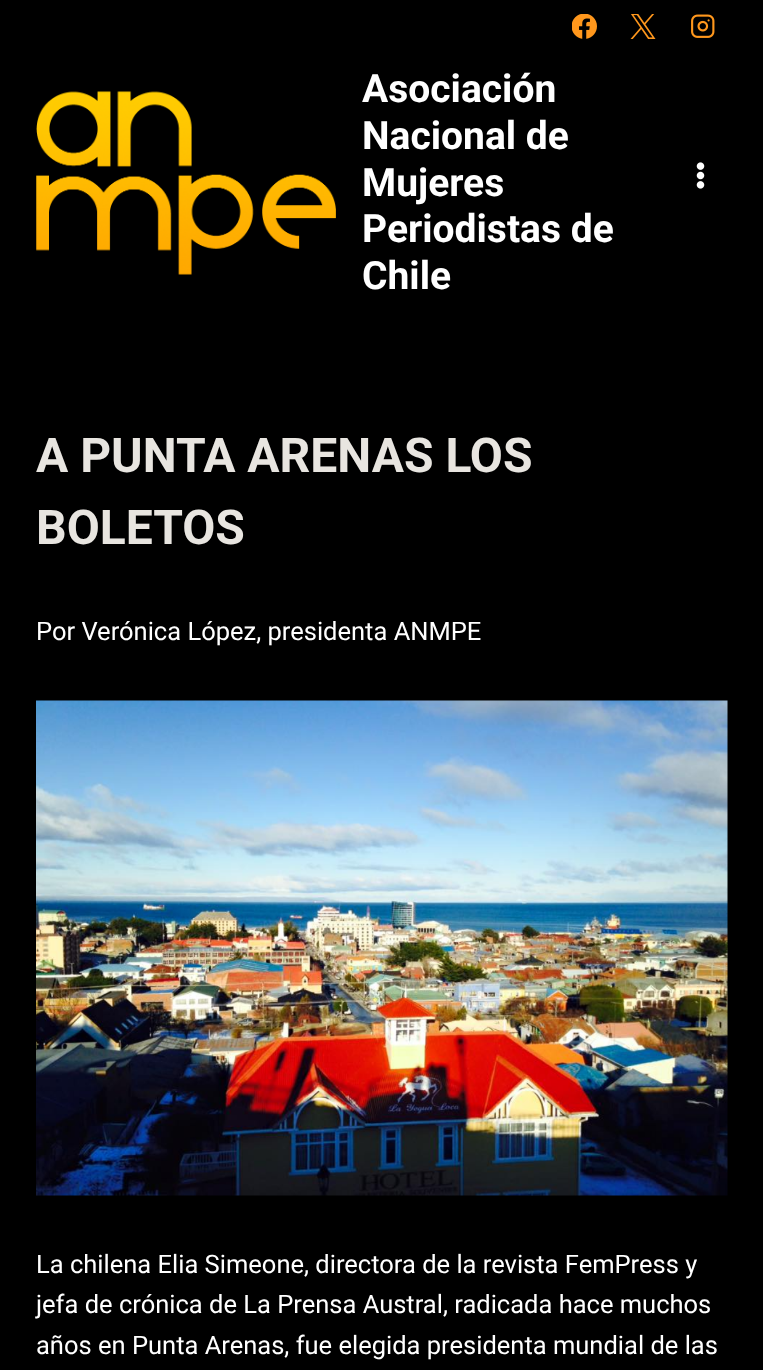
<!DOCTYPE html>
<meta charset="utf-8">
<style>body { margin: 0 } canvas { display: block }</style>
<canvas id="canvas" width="763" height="1370"></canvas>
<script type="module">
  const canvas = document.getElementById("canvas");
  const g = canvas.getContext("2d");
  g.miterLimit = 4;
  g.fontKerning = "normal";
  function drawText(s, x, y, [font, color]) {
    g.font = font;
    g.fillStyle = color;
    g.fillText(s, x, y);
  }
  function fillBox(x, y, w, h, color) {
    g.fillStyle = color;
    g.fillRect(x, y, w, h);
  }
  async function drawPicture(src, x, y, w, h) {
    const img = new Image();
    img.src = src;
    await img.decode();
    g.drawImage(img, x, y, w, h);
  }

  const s1 = ["bold 39px Roboto", "#FFFFFF"];
  const s2 = ["bold 48px Roboto", "#E8E5E0"];
  const s3 = ["25.5px Roboto", "#FFFFFF"];

  fillBox(0, 0, 763, 1370, "#000000");
  await drawPicture("pic1.png", 572, 14, 25, 25);
  await drawPicture("pic2.png", 630, 14, 26, 25);
  await drawPicture("pic3.png", 691, 14, 24, 24);
  await drawPicture("pic4.png", 36, 91, 300, 184);
  drawText("Asociación", 362, 102, s1);
  drawText("Nacional de", 362, 149, s1);
  drawText("Mujeres", 362, 196, s1);
  drawText("Periodistas de", 362, 242, s1);
  drawText("Chile", 362, 289, s1);
  await drawPicture("pic5.png", 696, 162, 9, 27);
  drawText("A PUNTA ARENAS LOS", 36, 472, s2);
  drawText("BOLETOS", 36, 544, s2);
  drawText("Por Verónica López, presidenta ANMPE", 36, 640, s3);
  await drawPicture("pic6.png", 36, 700, 692, 496);
  drawText("La chilena Elia Simeone, directora de la revista FemPress y", 36, 1273, s3);
  drawText("jefa de crónica de La Prensa Austral, radicada hace muchos", 36, 1313, s3);
  drawText("años en Punta Arenas, fue elegida presidenta mundial de las", 36, 1354, s3);
</script>
